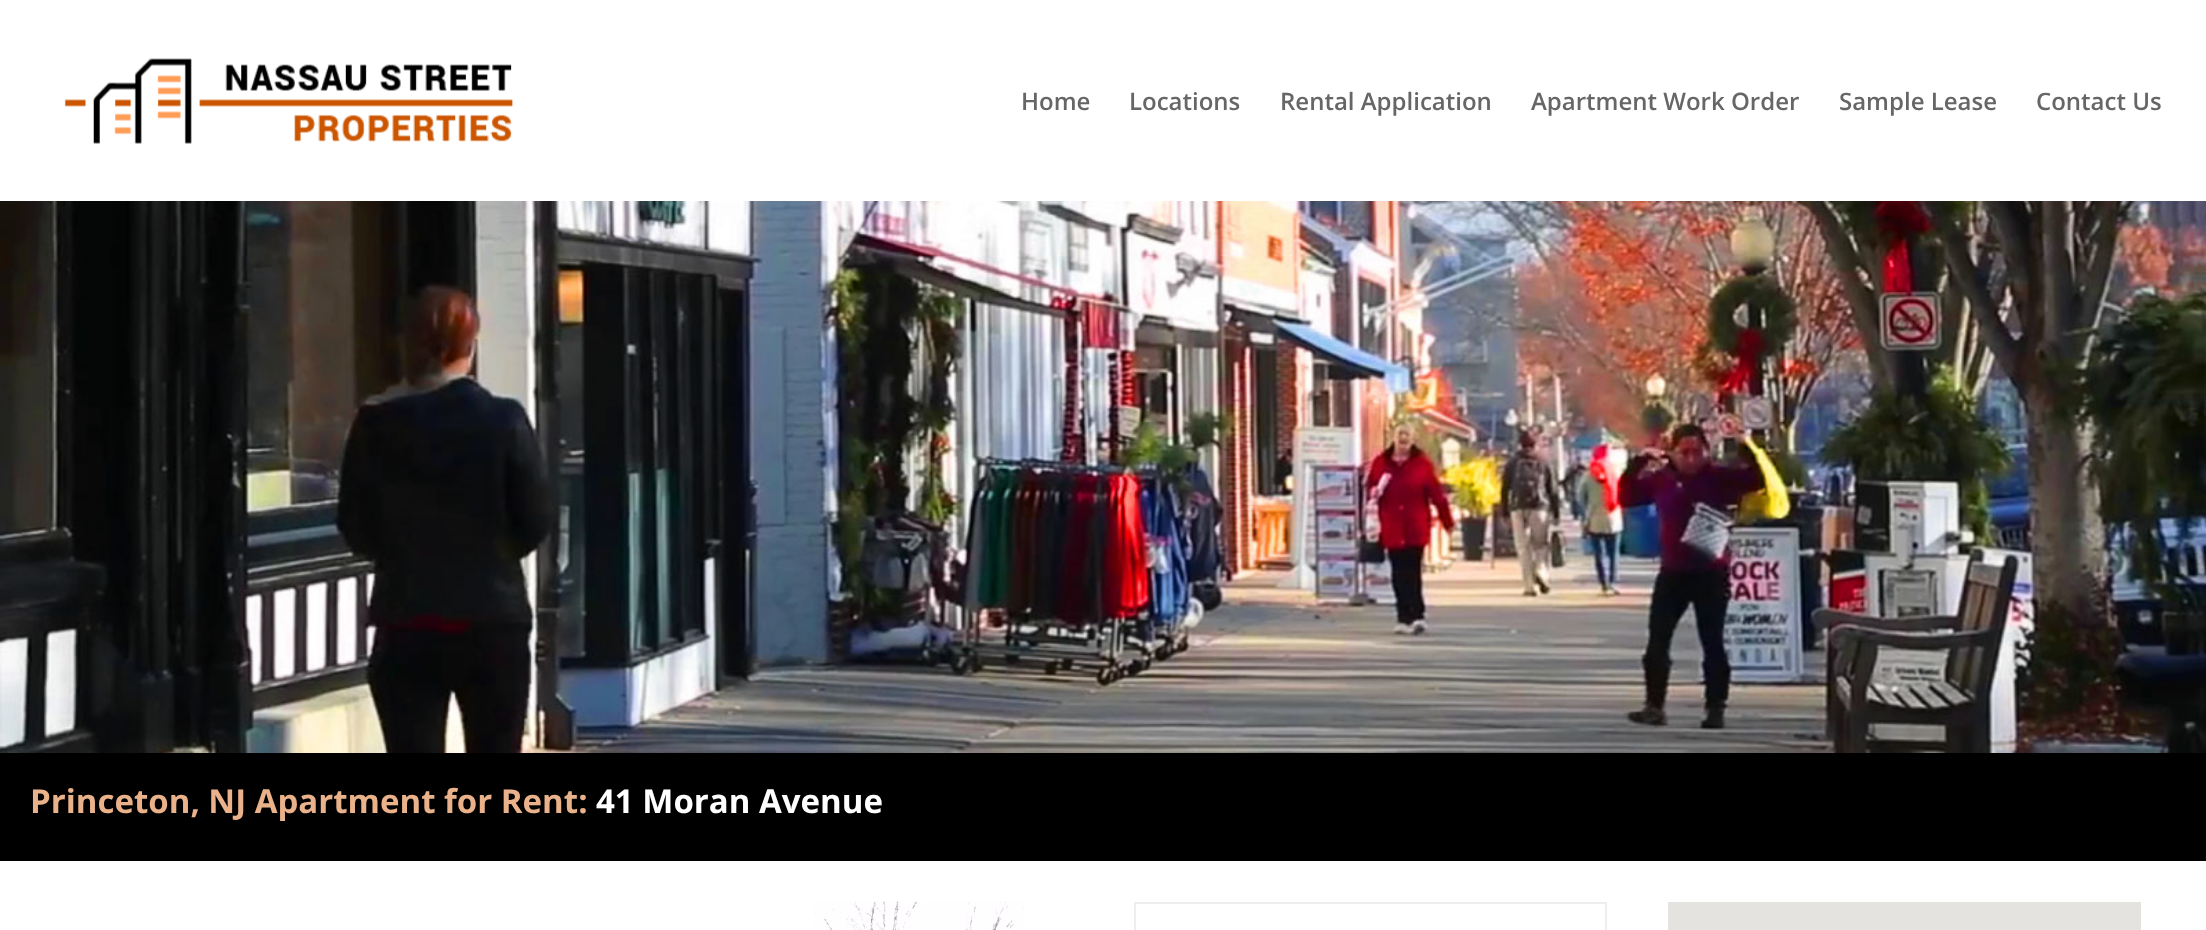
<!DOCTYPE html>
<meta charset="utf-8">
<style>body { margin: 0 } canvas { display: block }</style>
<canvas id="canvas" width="2206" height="930"></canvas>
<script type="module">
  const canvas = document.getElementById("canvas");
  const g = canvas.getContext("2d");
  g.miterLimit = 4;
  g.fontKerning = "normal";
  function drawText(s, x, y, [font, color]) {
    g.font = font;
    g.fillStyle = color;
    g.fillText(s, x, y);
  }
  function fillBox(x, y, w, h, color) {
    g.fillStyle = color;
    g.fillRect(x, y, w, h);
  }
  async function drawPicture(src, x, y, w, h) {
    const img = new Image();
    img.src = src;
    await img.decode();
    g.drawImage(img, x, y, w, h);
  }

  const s1 = ["600 24px Open Sans", "#666666"];
  const s2 = ["bold 33px Open Sans", "#EAB28A"];
  const s3 = ["bold 33px Open Sans", "#FFFFFF"];

  fillBox(0, 0, 2206, 930, "#FFFFFF");
  await drawPicture("pic1.png", 64, 58, 450, 86);
  drawText("Home", 1021, 110, s1);
  drawText("Locations", 1129, 110, s1);
  drawText("Rental Application", 1280, 110, s1);
  drawText("Apartment Work Order", 1531, 110, s1);
  drawText("Sample Lease", 1839, 110, s1);
  drawText("Contact Us", 2036, 110, s1);
  await drawPicture("pic2.png", 0, 201, 2206, 552);
  fillBox(0, 753, 2206, 108, "#000000");
  drawText("Princeton, NJ Apartment for Rent:", 30, 813, s2);
  drawText("41 Moran Avenue", 596, 813, s3);
  await drawPicture("pic3.png", 814, 901, 210, 29);
  fillBox(1134, 902, 473, 2, "#EEEEEE");
  fillBox(1605, 902, 2, 28, "#EEEEEE");
  fillBox(1134, 902, 2, 28, "#EEEEEE");
  fillBox(1668, 902, 473, 28, "#E5E3DF");
</script>
